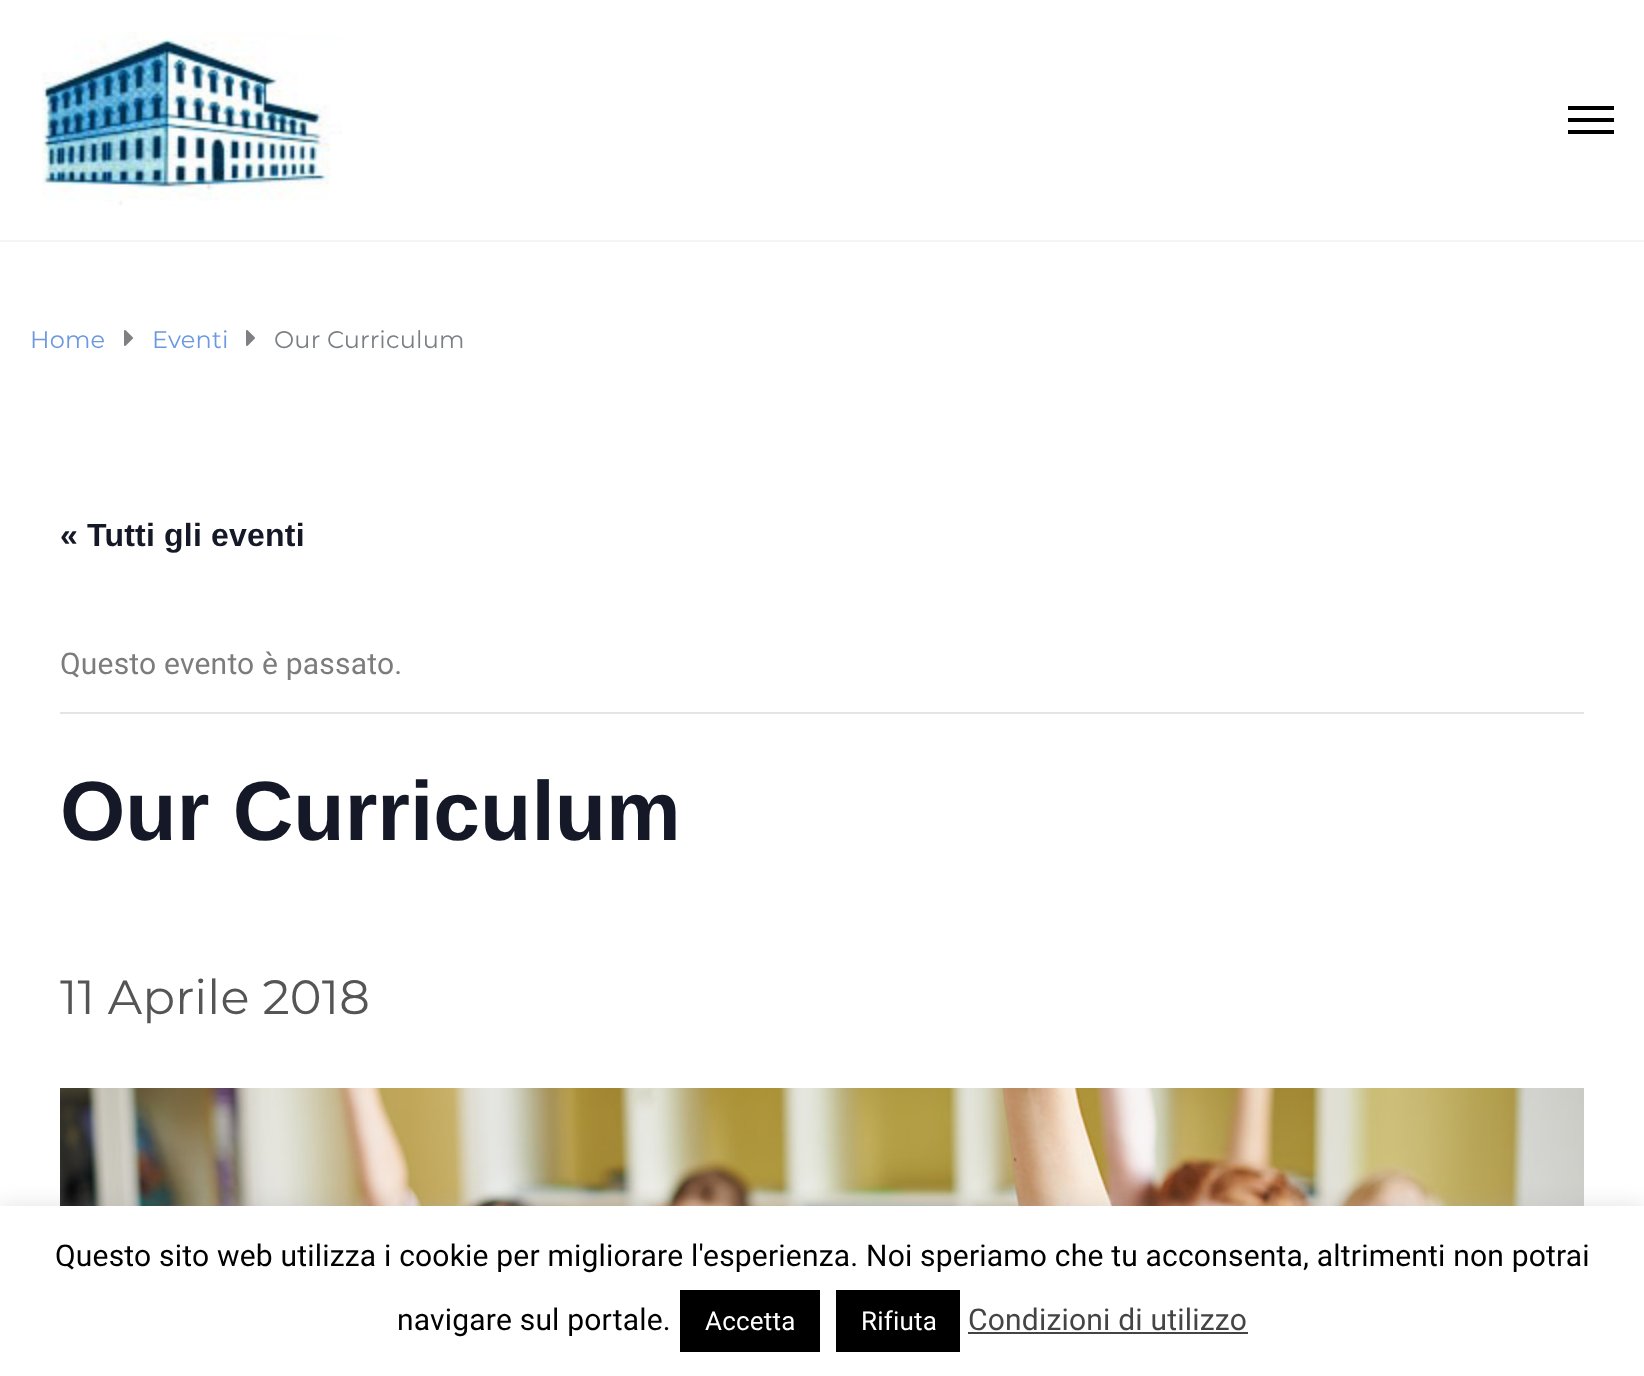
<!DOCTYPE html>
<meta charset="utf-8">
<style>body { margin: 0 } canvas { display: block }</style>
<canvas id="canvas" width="1644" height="1376"></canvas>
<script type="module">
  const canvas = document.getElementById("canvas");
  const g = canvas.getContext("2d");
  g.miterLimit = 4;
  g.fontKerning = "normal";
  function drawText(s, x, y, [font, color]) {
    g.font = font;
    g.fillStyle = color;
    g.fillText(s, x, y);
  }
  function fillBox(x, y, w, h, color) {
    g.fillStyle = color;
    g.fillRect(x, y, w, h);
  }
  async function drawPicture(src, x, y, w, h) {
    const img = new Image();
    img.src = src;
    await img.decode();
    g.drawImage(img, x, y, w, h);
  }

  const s1 = ["24px Montserrat", "#6C98E1"];
  const s2 = ["24px Montserrat", "#7B8085"];
  const s3 = ["bold 32px Liberation Sans", "#141827"];
  const s4 = ["30px Roboto", "#7C7C7C"];
  const s5 = ["bold 84px Liberation Sans", "#141827"];
  const s6 = ["48px Montserrat", "#555555"];
  const s7 = ["30px Roboto", "#000000"];
  const s8 = ["26px Roboto", "#FFFFFF"];
  const s9 = ["30px Roboto", "#444444"];

  fillBox(0, 0, 1644, 1376, "#FFFFFF");
  fillBox(0, 240, 1644, 2, "#F5F5F5");
  await drawPicture("pic1.png", 42, 32, 300, 174);
  fillBox(1568, 106, 46, 4, "#000000");
  fillBox(1568, 118, 46, 4, "#000000");
  fillBox(1568, 130, 46, 4, "#000000");
  g.letterSpacing = "0.2px";
  drawText("Home", 30, 348, s1);
  await drawPicture("pic2.png", 124, 330, 9, 16);
  drawText("Eventi", 152, 348, s1);
  await drawPicture("pic2.png", 246, 330, 9, 16);
  drawText("Our Curriculum", 274, 348, s2);
  drawText("« Tutti gli eventi", 60, 546, s3);
  fillBox(60, 712, 1524, 2, "#E4E4E4");
  drawText("Questo evento è passato.", 60, 674, s4);
  g.letterSpacing = "0px";
  drawText("Our Curriculum", 60, 840, s5);
  g.letterSpacing = "0.2px";
  drawText("11 Aprile 2018", 60, 1014, s6);
  await drawPicture("pic3.png", 60, 1088, 1524, 118);
  g.fillStyle = "rgba(172, 171, 171, 0.3)";
  g.filter = "blur(10px)";
  g.beginPath();
  g.rect(0, 1204, 1644, 170);
  g.fill();
  g.filter = "none";
  fillBox(0, 1206, 1644, 170, "#FFFFFF");
  drawText("Questo sito web utilizza i cookie per migliorare l'esperienza. Noi speriamo che tu acconsenta, altrimenti non potrai", 55, 1266, s7);
  drawText("navigare sul portale.", 397, 1330, s7);
  fillBox(680, 1290, 140, 62, "#000000");
  drawText("Accetta", 705, 1330, s8);
  fillBox(836, 1290, 124, 62, "#000000");
  drawText("Rifiuta", 861, 1330, s8);
  drawText("Condizioni di utilizzo", 968, 1330, s9);
  fillBox(968, 1332, 280, 2, "#444444");
</script>
